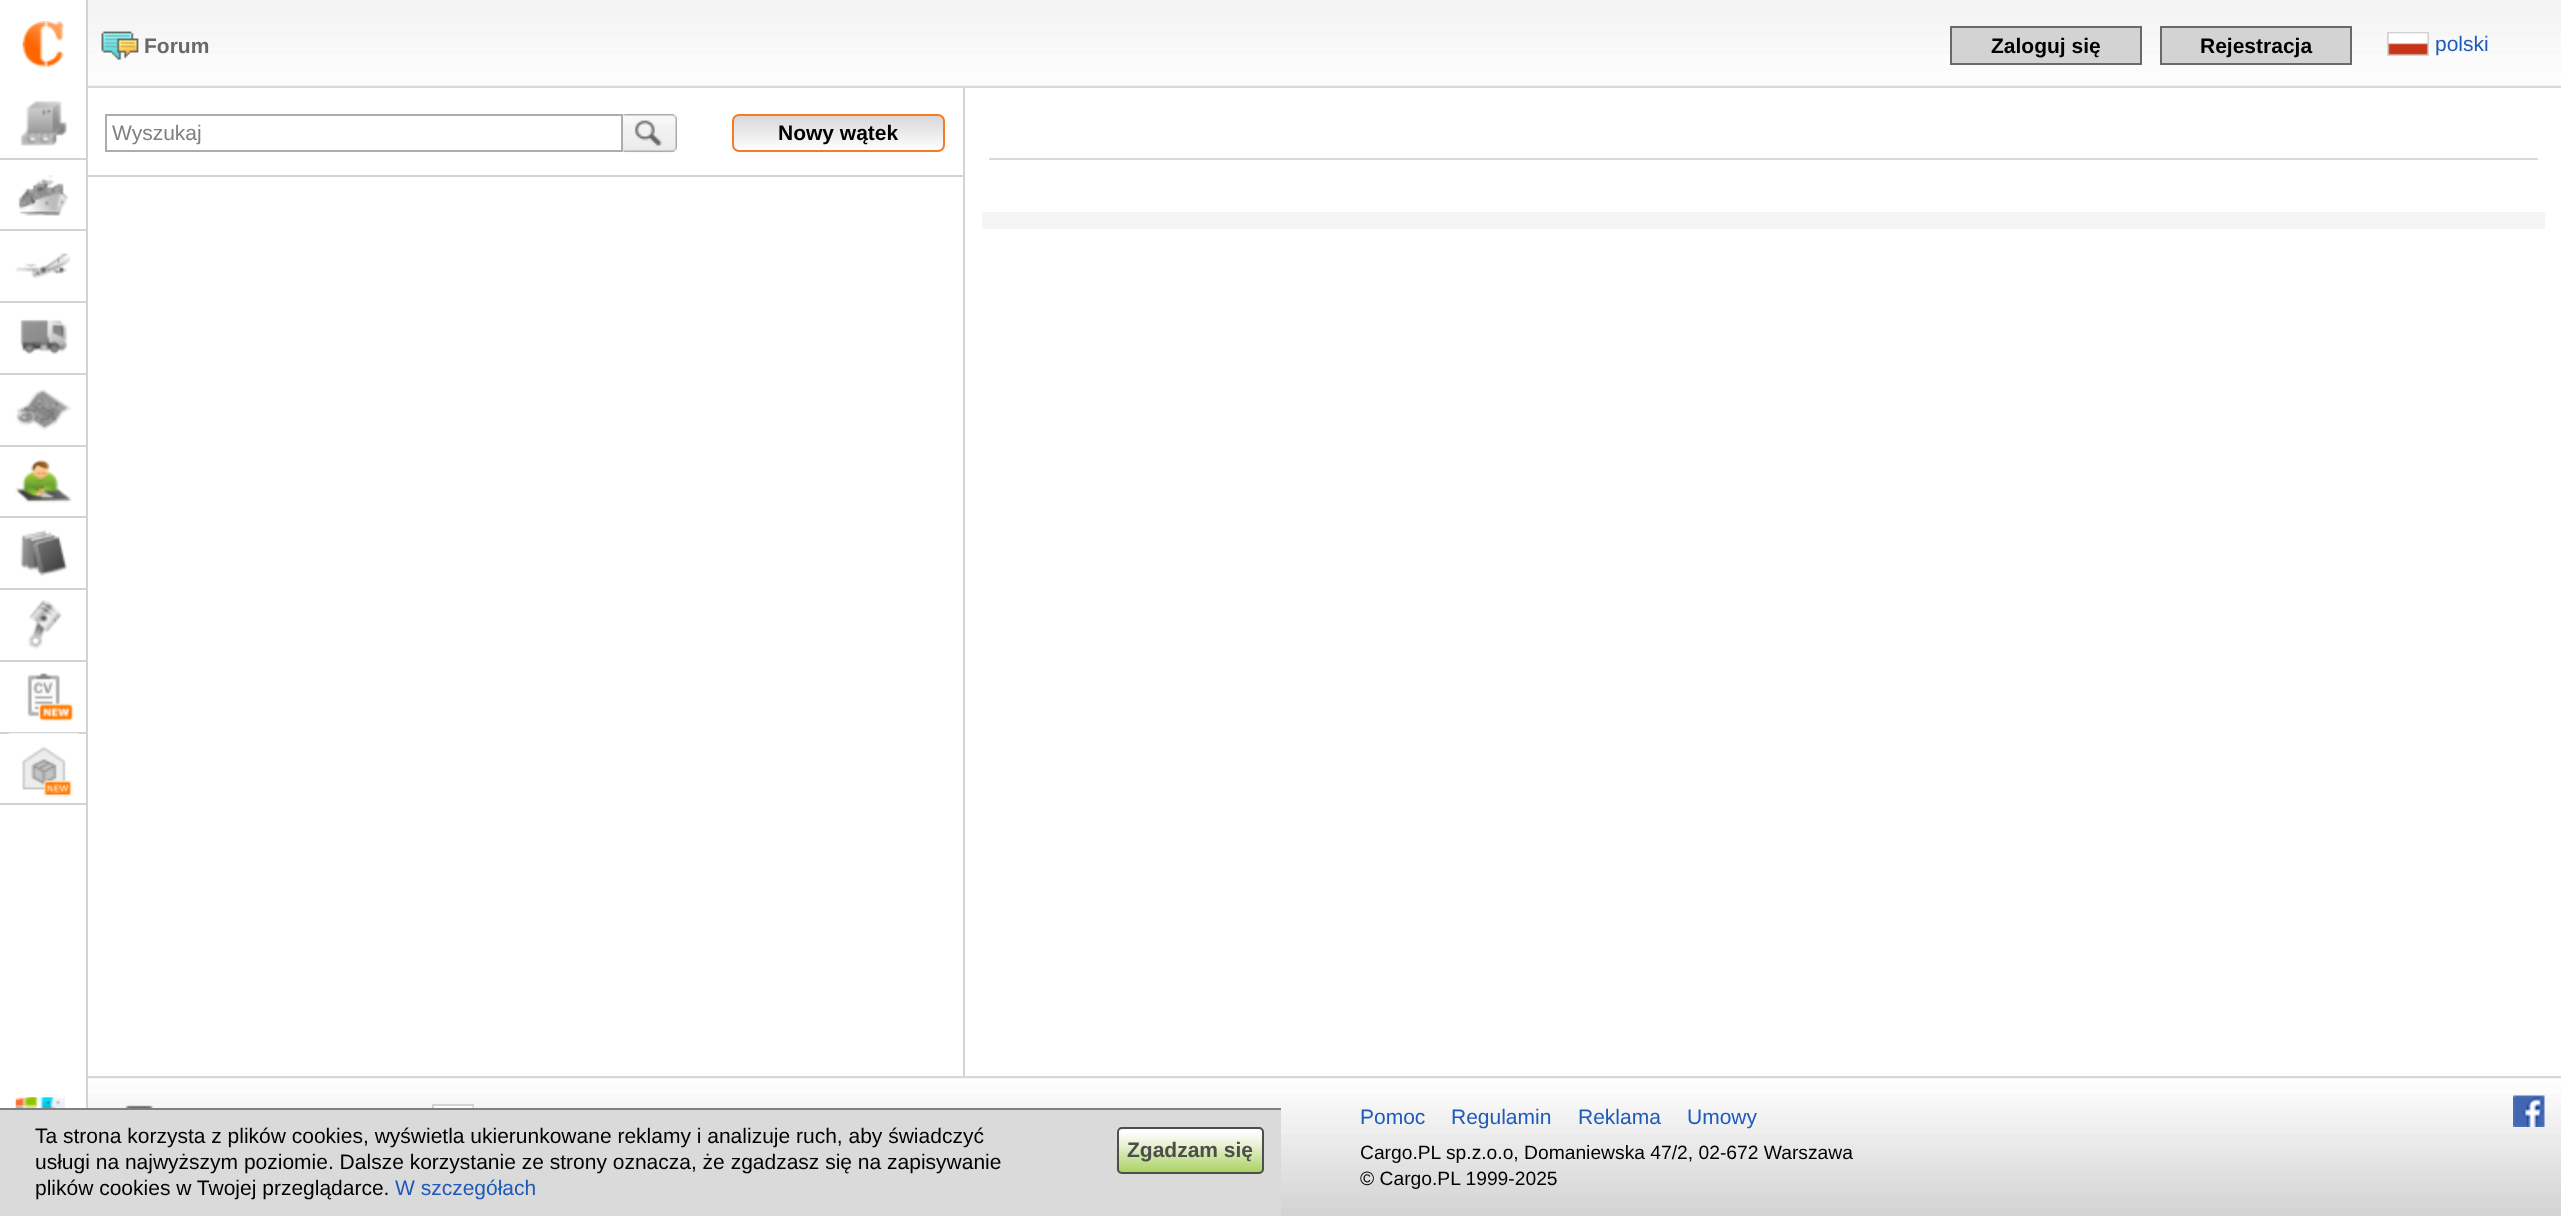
<!DOCTYPE html>
<meta charset="utf-8">
<style>body { margin: 0 } canvas { display: block }</style>
<canvas id="canvas" width="2561" height="1216"></canvas>
<script type="module">
  const canvas = document.getElementById("canvas");
  const g = canvas.getContext("2d");
  g.miterLimit = 4;
  g.fontKerning = "normal";
  function drawText(s, x, y, [font, color]) {
    g.font = font;
    g.fillStyle = color;
    g.fillText(s, x, y);
  }
  function fillBox(x, y, w, h, color) {
    g.fillStyle = color;
    g.fillRect(x, y, w, h);
  }
  async function drawPicture(src, x, y, w, h) {
    const img = new Image();
    img.src = src;
    await img.decode();
    g.drawImage(img, x, y, w, h);
  }
  let gradient;

  const s1 = ["bold 21px Liberation Sans", "#696969"];
  const s2 = ["bold 21px Liberation Sans", "#000000"];
  const s3 = ["21px Liberation Sans", "#1F5AB8"];
  const s4 = ["21px Liberation Sans", "#808080"];
  const s5 = ["19.25px Liberation Sans", "#000000"];
  const s6 = ["21px Liberation Sans", "#000000"];
  const s7 = ["bold 21px Liberation Sans", "#4D4D4D"];

  fillBox(0, 0, 2561, 1216, "#FFFFFF");
  fillBox(86, 0, 2, 1108, "#D3D3D3");
  await drawPicture("pic1.png", 22, 21, 42, 46);
  await drawPicture("pic2.png", 20, 100, 47, 46);
  fillBox(0, 158, 86, 2, "#D3D3D3");
  await drawPicture("pic3.png", 18, 175, 51, 41);
  fillBox(0, 229, 86, 2, "#D3D3D3");
  await drawPicture("pic4.png", 15, 253, 56, 26);
  fillBox(0, 301, 86, 2, "#D3D3D3");
  await drawPicture("pic5.png", 20, 319, 48, 36);
  fillBox(0, 373, 86, 2, "#D3D3D3");
  await drawPicture("pic6.png", 15, 389, 57, 42);
  fillBox(0, 445, 86, 2, "#D3D3D3");
  await drawPicture("pic7.png", 15, 459, 57, 44);
  fillBox(0, 516, 86, 2, "#D3D3D3");
  await drawPicture("pic8.png", 20, 529, 47, 48);
  fillBox(0, 588, 86, 2, "#D3D3D3");
  await drawPicture("pic9.png", 27, 600, 35, 50);
  fillBox(0, 660, 86, 2, "#D3D3D3");
  await drawPicture("pic10.png", 27, 672, 47, 50);
  fillBox(0, 732, 86, 2, "#D3D3D3");
  await drawPicture("pic11.png", 8, 733, 71, 64);
  fillBox(0, 803, 86, 2, "#D3D3D3");
  await drawPicture("pic12.png", 15, 1097, 50, 11);
  await drawPicture("pic13.png", 88, 0, 2473, 86);
  fillBox(88, 86, 2473, 2, "#D8D8D8");
  await drawPicture("pic14.png", 101, 31, 38, 29);
  drawText("Forum", 144, 53, s1);
  g.fillStyle = "#D3D3D3";
  g.beginPath();
  g.rect(1951, 27, 190, 37);
  g.fill();
  g.strokeStyle = "#696969";
  g.lineWidth = 2;
  g.stroke();
  drawText("Zaloguj się", 1991, 53, s2);
  g.fillStyle = "#D3D3D3";
  g.beginPath();
  g.rect(2161, 27, 190, 37);
  g.fill();
  g.stroke();
  drawText("Rejestracja", 2200, 53, s2);
  g.strokeStyle = "#D3D3D3";
  g.strokeRect(2388, 33, 40, 22);
  await drawPicture("pic15.png", 2388, 33, 40, 22);
  drawText("polski", 2435, 51, s3);
  fillBox(963, 88, 2, 988, "#D3D3D3");
  fillBox(88, 175, 875, 2, "#D3D3D3");
  g.strokeStyle = "#ACADAF";
  g.strokeRect(106, 115, 516, 36);
  drawText("Wyszukaj", 112, 140, s4);
  await drawPicture("pic16.png", 623, 113, 55, 40);
  g.save();
  g.beginPath();
  g.roundRect(732, 114, 213, 38, 7);
  g.clip();
  gradient = g.createLinearGradient(838, 116, 838, 151);
  gradient.addColorStop(0, "#D8D8D8");
  gradient.addColorStop(1, "#FFFFFF");
  g.fillStyle = gradient;
  g.fillRect(732, 116, 213, 35);
  g.restore();
  g.beginPath();
  g.roundRect(733, 115, 211, 36, 6);
  g.strokeStyle = "#F97A26";
  g.stroke();
  drawText("Nowy wątek", 778, 140, s2);
  fillBox(989, 158, 1549, 2, "#DADADA");
  fillBox(982, 212, 1563, 17, "#F5F5F5");
  await drawPicture("pic17.png", 88, 1078, 2473, 138);
  fillBox(88, 1076, 2473, 2, "#D8D8D8");
  await drawPicture("pic18.png", 125, 1105, 28, 3);
  g.strokeStyle = "#D3D3D3";
  g.strokeRect(433, 1105, 40, 23);
  await drawPicture("pic19.png", 434, 1106, 39, 2);
  drawText("Pomoc", 1360, 1124, s3);
  drawText("Regulamin", 1451, 1124, s3);
  drawText("Reklama", 1578, 1124, s3);
  drawText("Umowy", 1687, 1124, s3);
  drawText("Cargo.PL sp.z.o.o, Domaniewska 47/2, 02-672 Warszawa", 1360, 1159, s5);
  drawText("© Cargo.PL 1999-2025", 1360, 1185, s5);
  await drawPicture("pic20.png", 2513, 1095, 32, 32);
  fillBox(0, 1110, 1281, 106, "#DADADA");
  fillBox(0, 1108, 1281, 2, "#808080");
  drawText("Ta strona korzysta z plików cookies, wyświetla ukierunkowane reklamy i analizuje ruch, aby świadczyć", 35, 1143, s6);
  drawText("usługi na najwyższym poziomie. Dalsze korzystanie ze strony oznacza, że zgadzasz się na zapisywanie", 35, 1169, s6);
  drawText("plików cookies w Twojej przeglądarce.", 35, 1195, s6);
  drawText("W szczegółach", 395, 1195, s3);
  await drawPicture("pic21.png", 1116, 1127, 148, 48);
  g.beginPath();
  g.roundRect(1118, 1128, 145, 45, 4);
  g.strokeStyle = "#4D4D4D";
  g.stroke();
  drawText("Zgadzam się", 1127, 1157, s7);
</script>
